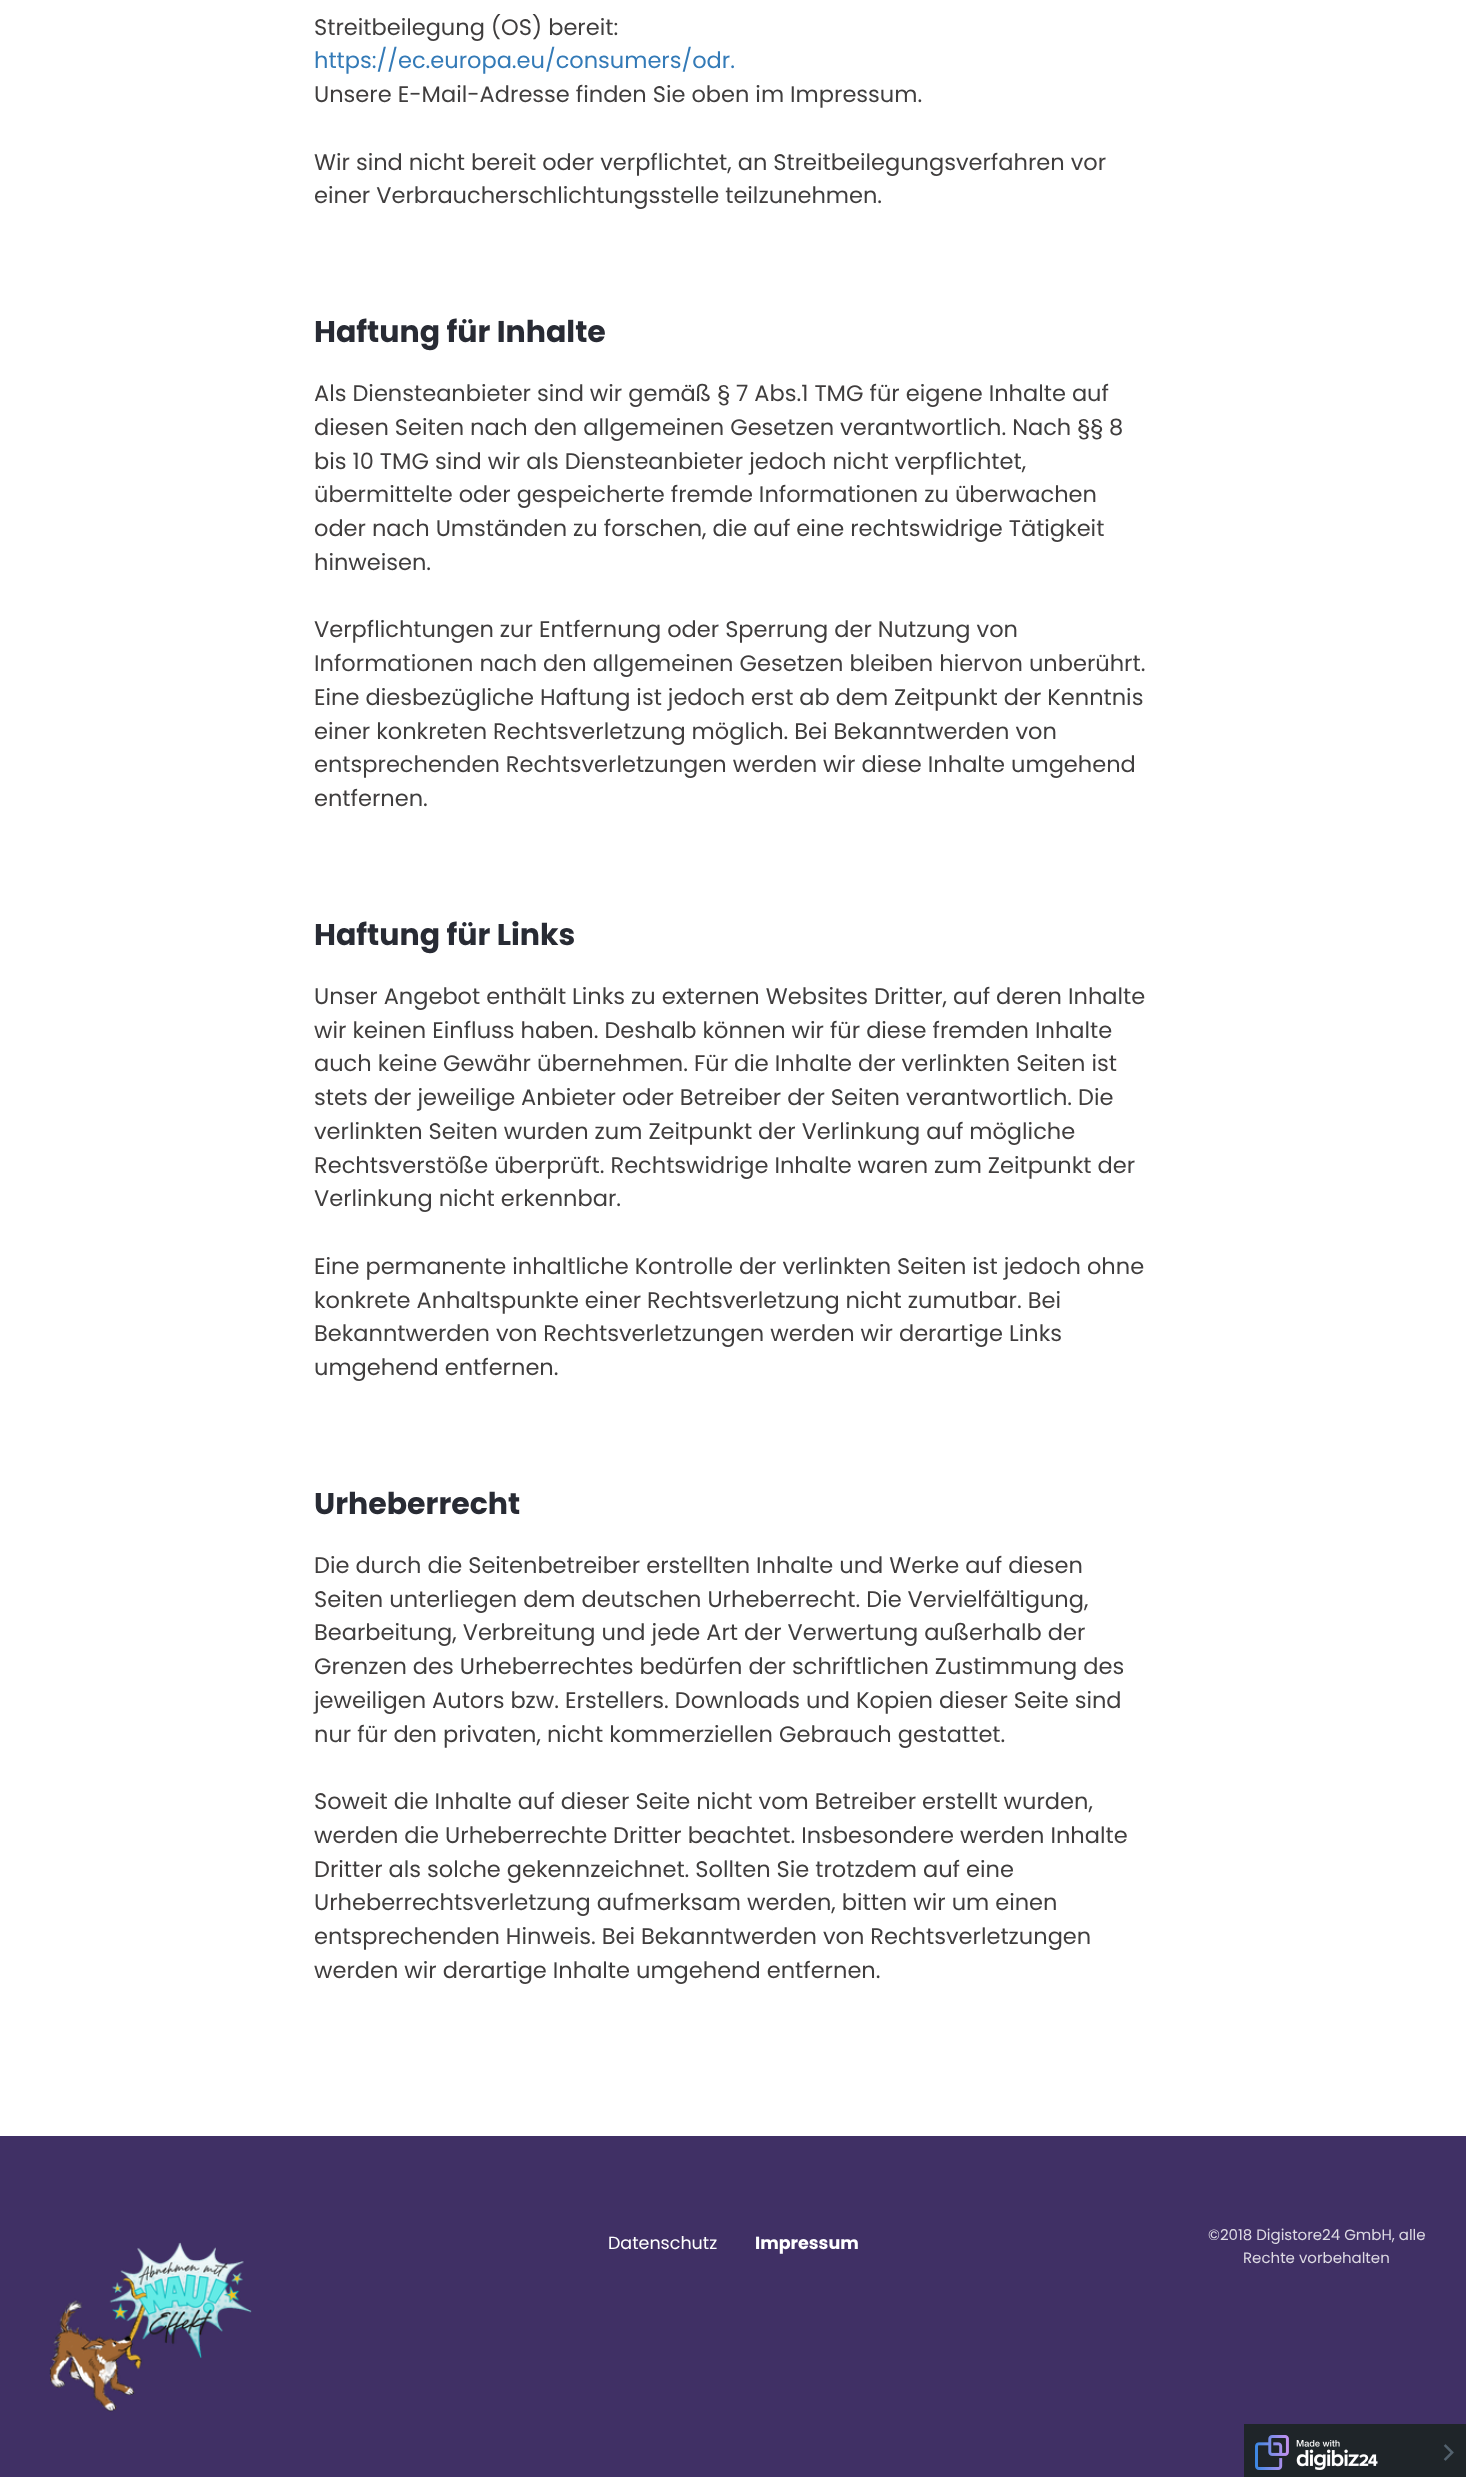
<!DOCTYPE html>
<meta charset="utf-8">
<style>body { margin: 0 } canvas { display: block }</style>
<canvas id="canvas" width="1466" height="2477"></canvas>
<script type="module">
  const canvas = document.getElementById("canvas");
  const g = canvas.getContext("2d");
  g.miterLimit = 4;
  g.fontKerning = "normal";
  function drawText(s, x, y, [font, color]) {
    g.font = font;
    g.fillStyle = color;
    g.fillText(s, x, y);
  }
  function fillBox(x, y, w, h, color) {
    g.fillStyle = color;
    g.fillRect(x, y, w, h);
  }
  async function drawPicture(src, x, y, w, h) {
    const img = new Image();
    img.src = src;
    await img.decode();
    g.drawImage(img, x, y, w, h);
  }

  const s1 = ["22.5px Poppins", "#403E3E"];
  const s2 = ["22.5px Poppins", "#337AB7"];
  const s3 = ["bold 30px Poppins", "#282B34"];
  const s4 = ["17.5px Poppins", "#FFFFFF"];
  const s5 = ["bold 17.5px Poppins", "#FFFFFF"];
  const s6 = ["15px Poppins", "#DDDAE3"];

  fillBox(0, 0, 1466, 2477, "#FFFFFF");
  drawText("Streitbeilegung (OS) bereit:", 314, 35, s1);
  drawText("https://ec.europa.eu/consumers/odr.", 314, 68, s2);
  drawText("Unsere E-Mail-Adresse finden Sie oben im Impressum.", 314, 102, s1);
  drawText("Wir sind nicht bereit oder verpflichtet, an Streitbeilegungsverfahren vor", 314, 170, s1);
  drawText("einer Verbraucherschlichtungsstelle teilzunehmen.", 314, 203, s1);
  drawText("Haftung für Inhalte", 314, 342, s3);
  drawText("Als Diensteanbieter sind wir gemäß § 7 Abs.1 TMG für eigene Inhalte auf", 314, 401, s1);
  drawText("diesen Seiten nach den allgemeinen Gesetzen verantwortlich. Nach §§ 8", 314, 435, s1);
  drawText("bis 10 TMG sind wir als Diensteanbieter jedoch nicht verpflichtet,", 314, 469, s1);
  drawText("übermittelte oder gespeicherte fremde Informationen zu überwachen", 314, 502, s1);
  drawText("oder nach Umständen zu forschen, die auf eine rechtswidrige Tätigkeit", 314, 536, s1);
  drawText("hinweisen.", 314, 570, s1);
  drawText("Verpflichtungen zur Entfernung oder Sperrung der Nutzung von", 314, 637, s1);
  drawText("Informationen nach den allgemeinen Gesetzen bleiben hiervon unberührt.", 314, 671, s1);
  drawText("Eine diesbezügliche Haftung ist jedoch erst ab dem Zeitpunkt der Kenntnis", 314, 705, s1);
  drawText("einer konkreten Rechtsverletzung möglich. Bei Bekanntwerden von", 314, 739, s1);
  drawText("entsprechenden Rechtsverletzungen werden wir diese Inhalte umgehend", 314, 772, s1);
  drawText("entfernen.", 314, 806, s1);
  drawText("Haftung für Links", 314, 945, s3);
  drawText("Unser Angebot enthält Links zu externen Websites Dritter, auf deren Inhalte", 314, 1004, s1);
  drawText("wir keinen Einfluss haben. Deshalb können wir für diese fremden Inhalte", 314, 1038, s1);
  drawText("auch keine Gewähr übernehmen. Für die Inhalte der verlinkten Seiten ist", 314, 1071, s1);
  drawText("stets der jeweilige Anbieter oder Betreiber der Seiten verantwortlich. Die", 314, 1105, s1);
  drawText("verlinkten Seiten wurden zum Zeitpunkt der Verlinkung auf mögliche", 314, 1139, s1);
  drawText("Rechtsverstöße überprüft. Rechtswidrige Inhalte waren zum Zeitpunkt der", 314, 1173, s1);
  drawText("Verlinkung nicht erkennbar.", 314, 1206, s1);
  drawText("Eine permanente inhaltliche Kontrolle der verlinkten Seiten ist jedoch ohne", 314, 1274, s1);
  drawText("konkrete Anhaltspunkte einer Rechtsverletzung nicht zumutbar. Bei", 314, 1308, s1);
  drawText("Bekanntwerden von Rechtsverletzungen werden wir derartige Links", 314, 1341, s1);
  drawText("umgehend entfernen.", 314, 1375, s1);
  drawText("Urheberrecht", 314, 1514, s3);
  drawText("Die durch die Seitenbetreiber erstellten Inhalte und Werke auf diesen", 314, 1573, s1);
  drawText("Seiten unterliegen dem deutschen Urheberrecht. Die Vervielfältigung,", 314, 1607, s1);
  drawText("Bearbeitung, Verbreitung und jede Art der Verwertung außerhalb der", 314, 1640, s1);
  drawText("Grenzen des Urheberrechtes bedürfen der schriftlichen Zustimmung des", 314, 1674, s1);
  drawText("jeweiligen Autors bzw. Erstellers. Downloads und Kopien dieser Seite sind", 314, 1708, s1);
  drawText("nur für den privaten, nicht kommerziellen Gebrauch gestattet.", 314, 1742, s1);
  drawText("Soweit die Inhalte auf dieser Seite nicht vom Betreiber erstellt wurden,", 314, 1809, s1);
  drawText("werden die Urheberrechte Dritter beachtet. Insbesondere werden Inhalte", 314, 1843, s1);
  drawText("Dritter als solche gekennzeichnet. Sollten Sie trotzdem auf eine", 314, 1877, s1);
  drawText("Urheberrechtsverletzung aufmerksam werden, bitten wir um einen", 314, 1910, s1);
  drawText("entsprechenden Hinweis. Bei Bekanntwerden von Rechtsverletzungen", 314, 1944, s1);
  drawText("werden wir derartige Inhalte umgehend entfernen.", 314, 1978, s1);
  fillBox(0, 2136, 1466, 341, "#403065");
  await drawPicture("pic1.png", 49, 2242, 203, 170);
  drawText("Datenschutz", 608, 2249, s4);
  drawText("Impressum", 755, 2249, s5);
  drawText("©2018 Digistore24 GmbH, alle", 1208, 2240, s6);
  drawText("Rechte vorbehalten", 1243, 2263, s6);
  await drawPicture("pic2.png", 1244, 2424, 222, 53);
</script>
